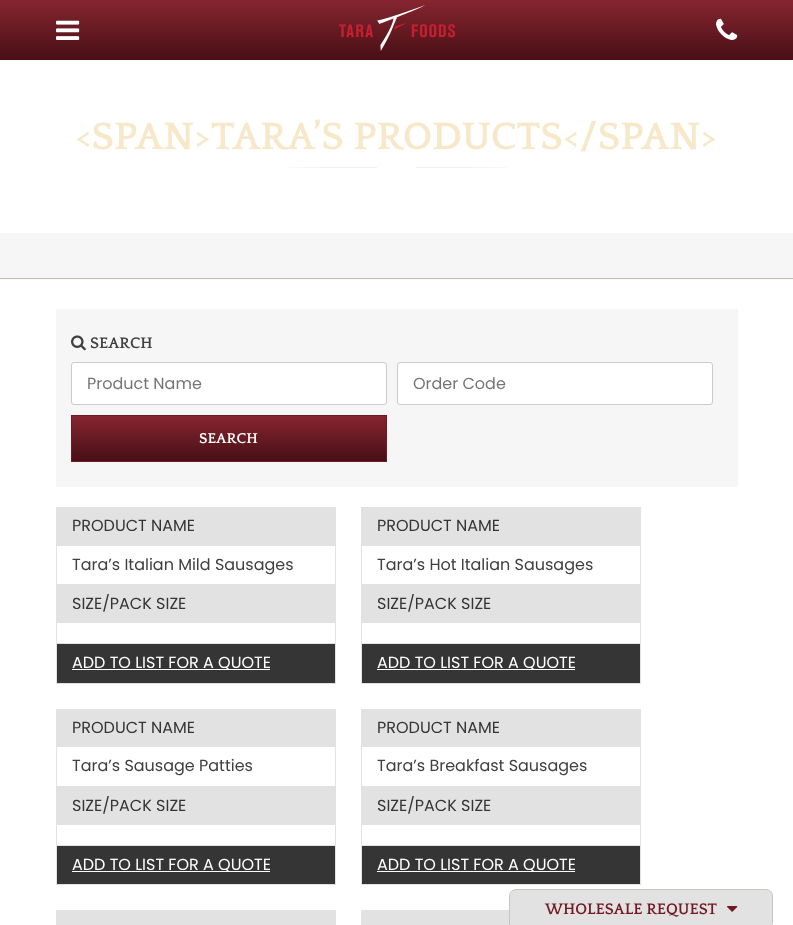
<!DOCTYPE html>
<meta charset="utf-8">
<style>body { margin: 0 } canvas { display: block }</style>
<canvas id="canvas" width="793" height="925"></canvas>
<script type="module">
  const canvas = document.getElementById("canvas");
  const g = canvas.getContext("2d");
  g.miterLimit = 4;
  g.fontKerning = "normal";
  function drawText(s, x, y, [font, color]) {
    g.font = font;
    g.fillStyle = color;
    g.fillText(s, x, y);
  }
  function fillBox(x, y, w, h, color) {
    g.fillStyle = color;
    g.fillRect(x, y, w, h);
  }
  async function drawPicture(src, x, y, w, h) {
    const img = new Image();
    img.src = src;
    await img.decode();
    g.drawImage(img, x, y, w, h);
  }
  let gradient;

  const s1 = ["bold 40px Quattrocento", "#F7E8C9"];
  const s2 = ["bold 16px Quattrocento", "#404040"];
  const s3 = ["16px Poppins", "#757575"];
  const s4 = ["bold 15px Quattrocento", "#FFFFFF"];
  const s5 = ["16px Poppins", "#353535"];
  const s6 = ["16px Poppins", "#404040"];
  const s7 = ["16px Poppins", "#FFFFFF"];
  const s8 = ["bold 16px Quattrocento", "#711923"];

  fillBox(0, 0, 793, 925, "#FFFFFF");
  gradient = g.createLinearGradient(397, 60, 397, 0);
  gradient.addColorStop(0, "#480F15");
  gradient.addColorStop(1, "#862530");
  g.fillStyle = gradient;
  g.fillRect(0, 0, 793, 60);
  await drawPicture("pic1.png", 56, 20, 24, 20);
  await drawPicture("pic2.png", 339, 5, 116, 46);
  await drawPicture("pic3.png", 716, 18, 22, 22);
  drawText("<SPAN>TARA’S PRODUCTS<\/SPAN>", 75, 149, s1);
  await drawPicture("pic4.png", 287, 167, 221, 1);
  fillBox(0, 233, 793, 45, "#F6F6F6");
  fillBox(0, 278, 793, 1, "#CAB7AA");
  fillBox(56, 309, 682, 178, "#F6F6F6");
  await drawPicture("pic5.png", 71, 335, 15, 16);
  drawText("SEARCH", 90, 348, s2);
  g.fillStyle = "#FFFFFF";
  g.beginPath();
  g.roundRect(71.5, 362.5, 315, 42, 2.5);
  g.fill();
  g.strokeStyle = "#CCCCCC";
  g.stroke();
  drawText("Product Name", 87, 389, s3);
  g.fillStyle = "#FFFFFF";
  g.beginPath();
  g.roundRect(397.5, 362.5, 315, 42, 2.5);
  g.fill();
  g.stroke();
  drawText("Order Code", 413, 389, s3);
  gradient = g.createLinearGradient(229, 461, 229, 416);
  gradient.addColorStop(0, "#480F15");
  gradient.addColorStop(1, "#862530");
  g.fillStyle = gradient;
  g.fillRect(72, 416, 314, 45);
  g.strokeStyle = "#711923";
  g.strokeRect(71.5, 415.5, 315, 46);
  drawText("SEARCH", 199, 443, s4);
  fillBox(56, 507, 1, 177, "#E2E2E2");
  fillBox(335, 507, 1, 177, "#E2E2E2");
  fillBox(57, 584, 279, 1, "#E2E2E2");
  fillBox(57, 507, 278, 39, "#E2E2E2");
  drawText("PRODUCT NAME", 72, 531, s5);
  drawText("Tara’s Italian Mild Sausages", 72, 570, s6);
  fillBox(57, 643, 279, 1, "#E2E2E2");
  fillBox(57, 585, 278, 38, "#E2E2E2");
  drawText("SIZE/PACK SIZE", 72, 609, s5);
  fillBox(57, 644, 278, 39, "#353535");
  fillBox(57, 683, 279, 1, "#E2E2E2");
  fillBox(72, 669, 198, 1, "#FFFFFF");
  drawText("ADD TO LIST FOR A QUOTE", 72, 668, s7);
  fillBox(361, 507, 1, 177, "#E2E2E2");
  fillBox(640, 507, 1, 177, "#E2E2E2");
  fillBox(362, 584, 279, 1, "#E2E2E2");
  fillBox(362, 507, 278, 39, "#E2E2E2");
  drawText("PRODUCT NAME", 377, 531, s5);
  drawText("Tara’s Hot Italian Sausages", 377, 570, s6);
  fillBox(362, 643, 279, 1, "#E2E2E2");
  fillBox(362, 585, 278, 38, "#E2E2E2");
  drawText("SIZE/PACK SIZE", 377, 609, s5);
  fillBox(362, 644, 278, 39, "#353535");
  fillBox(362, 683, 279, 1, "#E2E2E2");
  fillBox(377, 669, 198, 1, "#FFFFFF");
  drawText("ADD TO LIST FOR A QUOTE", 377, 668, s7);
  fillBox(56, 709, 1, 176, "#E2E2E2");
  fillBox(335, 709, 1, 176, "#E2E2E2");
  fillBox(57, 786, 279, 1, "#E2E2E2");
  fillBox(57, 709, 278, 38, "#E2E2E2");
  drawText("PRODUCT NAME", 72, 733, s5);
  drawText("Tara’s Sausage Patties", 72, 771, s6);
  fillBox(57, 845, 279, 1, "#E2E2E2");
  fillBox(57, 787, 278, 38, "#E2E2E2");
  drawText("SIZE/PACK SIZE", 72, 811, s5);
  fillBox(57, 846, 278, 38, "#353535");
  fillBox(57, 884, 279, 1, "#E2E2E2");
  fillBox(72, 871, 198, 1, "#FFFFFF");
  drawText("ADD TO LIST FOR A QUOTE", 72, 870, s7);
  fillBox(361, 709, 1, 176, "#E2E2E2");
  fillBox(640, 709, 1, 176, "#E2E2E2");
  fillBox(362, 786, 279, 1, "#E2E2E2");
  fillBox(362, 709, 278, 38, "#E2E2E2");
  drawText("PRODUCT NAME", 377, 733, s5);
  drawText("Tara’s Breakfast Sausages", 377, 771, s6);
  fillBox(362, 845, 279, 1, "#E2E2E2");
  fillBox(362, 787, 278, 38, "#E2E2E2");
  drawText("SIZE/PACK SIZE", 377, 811, s5);
  fillBox(362, 846, 278, 38, "#353535");
  fillBox(362, 884, 279, 1, "#E2E2E2");
  fillBox(377, 871, 198, 1, "#FFFFFF");
  drawText("ADD TO LIST FOR A QUOTE", 377, 870, s7);
  fillBox(56, 910, 1, 15, "#E2E2E2");
  fillBox(57, 910, 279, 15, "#E2E2E2");
  fillBox(361, 910, 149, 15, "#E2E2E2");
  g.beginPath();
  g.roundRect(509.5, 889.5, 263, 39, 6.5);
  g.fill();
  g.strokeStyle = "#CAC6BF";
  g.stroke();
  drawText("WHOLESALE REQUEST", 545, 914, s8);
  await drawPicture("pic6.png", 727, 906, 11, 6);
</script>
